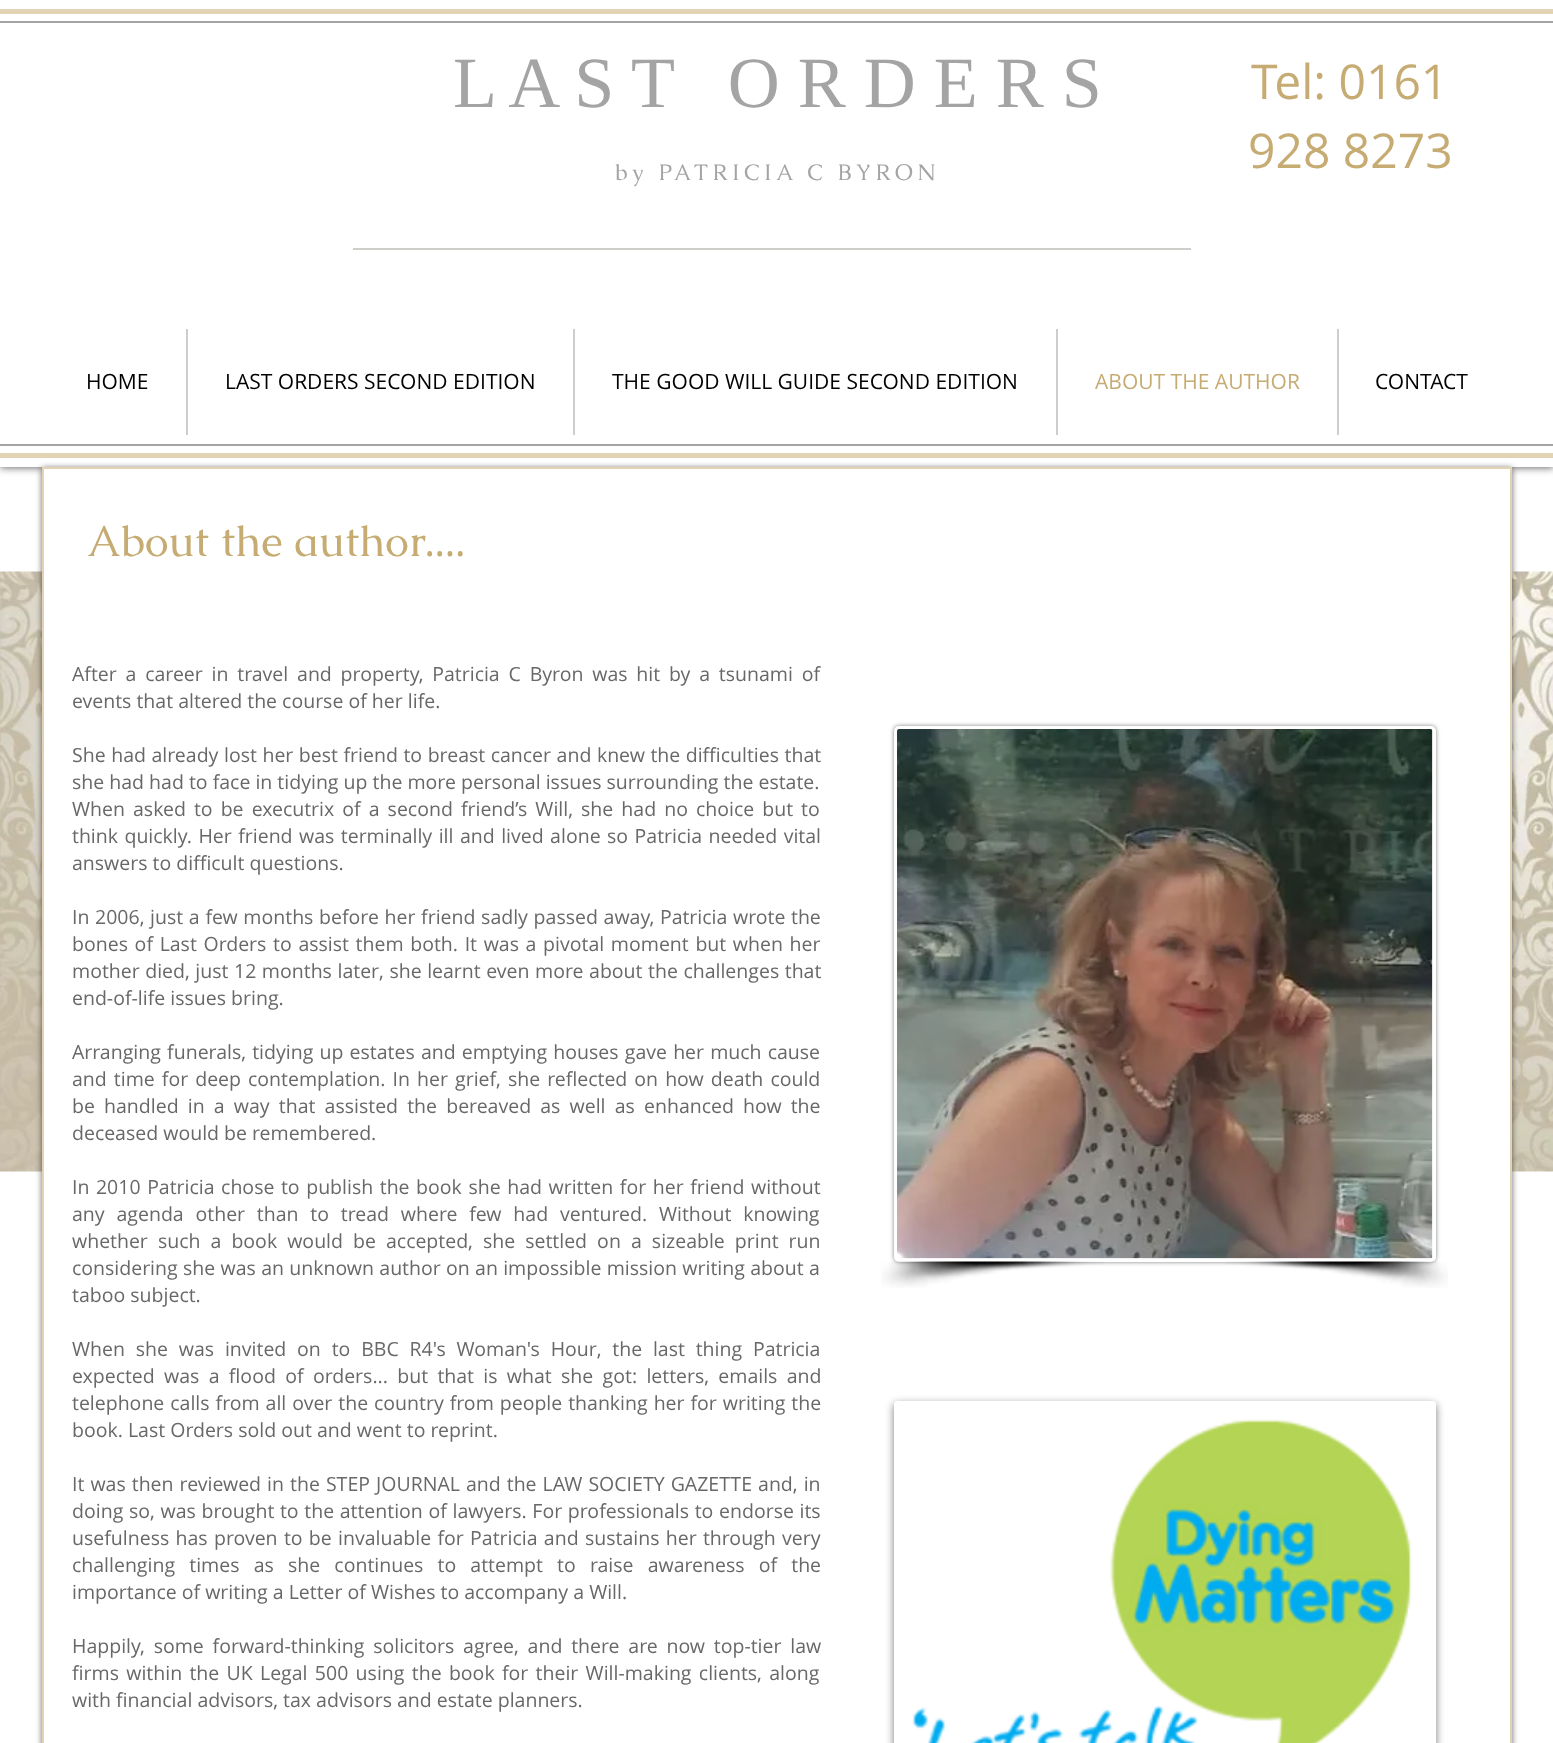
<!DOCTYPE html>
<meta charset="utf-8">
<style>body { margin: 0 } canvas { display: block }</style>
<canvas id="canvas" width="1553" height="1743"></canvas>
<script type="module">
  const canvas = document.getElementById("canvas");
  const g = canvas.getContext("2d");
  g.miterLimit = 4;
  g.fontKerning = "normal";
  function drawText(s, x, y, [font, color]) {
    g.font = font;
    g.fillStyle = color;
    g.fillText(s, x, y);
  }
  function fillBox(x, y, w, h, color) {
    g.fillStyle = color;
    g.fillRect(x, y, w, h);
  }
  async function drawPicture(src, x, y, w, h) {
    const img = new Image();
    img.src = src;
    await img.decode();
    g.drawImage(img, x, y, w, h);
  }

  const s1 = ["72px Liberation Serif", "#A4A4A4"];
  const s2 = ["22.5px Caudex", "#A4A4A4"];
  const s3 = ["48px Open Sans", "#C6AC73"];
  const s4 = ["21px Open Sans", "#000000"];
  const s5 = ["21px Open Sans", "#C6AC73"];
  const s6 = ["43.5px Caudex", "#C6AC73"];
  const s7 = ["19.5px Open Sans", "#696868"];

  fillBox(0, 0, 1553, 1743, "#FFFFFF");
  g.fillStyle = "rgba(0, 0, 0, 0.7)";
  g.filter = "blur(4px)";
  g.beginPath();
  g.rect(0, 0, 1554, 467);
  g.fill();
  g.filter = "none";
  fillBox(0, 0, 1553, 467, "#FFFFFF");
  fillBox(0, 9, 1553, 5, "#E1D3B3");
  fillBox(0, 453, 1553, 5, "#E1D3B3");
  fillBox(0, 21, 1553, 2, "#A4A4A4");
  fillBox(0, 444, 1553, 2, "#A4A4A4");
  drawText("L A S T   O R D E R S", 453, 107, s1);
  g.letterSpacing = "4.5px";
  drawText("by PATRICIA C BYRON", 615, 180, s2);
  g.letterSpacing = "0px";
  drawText("Tel: 0161", 1251, 99, s3);
  drawText("928 8273", 1248, 168, s3);
  fillBox(353, 248, 838, 2, "#CDCDC9");
  drawText("HOME", 86, 389, s4);
  fillBox(186, 329, 2, 106, "#CDCDC9");
  drawText("LAST ORDERS SECOND EDITION", 225, 389, s4);
  fillBox(573, 329, 2, 106, "#CDCDC9");
  drawText("THE GOOD WILL GUIDE SECOND EDITION", 612, 389, s4);
  fillBox(1056, 329, 2, 106, "#CDCDC9");
  drawText("ABOUT THE AUTHOR", 1095, 389, s5);
  fillBox(1337, 329, 2, 106, "#CDCDC9");
  drawText("CONTACT", 1375, 389, s4);
  await drawPicture("pic5.png", 0, 571, 1553, 601);
  g.fillStyle = "rgba(0, 0, 0, 0.6)";
  g.filter = "blur(3px)";
  g.beginPath();
  g.rect(42, 468, 1470, 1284);
  g.fill();
  g.filter = "none";
  g.fillStyle = "#FFFFFF";
  g.beginPath();
  g.rect(43, 468, 1468, 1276);
  g.fill();
  g.strokeStyle = "#E1D3B3";
  g.lineWidth = 2;
  g.stroke();
  drawText("About the author....", 87, 556, s6);
  g.wordSpacing = "3.75px";
  drawText("After a career in travel and property, Patricia C Byron was hit by a tsunami of", 72, 681, s7);
  g.wordSpacing = "0px";
  drawText("events that altered the course of her life.", 72, 708, s7);
  g.wordSpacing = "0.5px";
  drawText("She had already lost her best friend to breast cancer and knew the difficulties that", 72, 762, s7);
  g.wordSpacing = "0px";
  drawText("she had had to face in tidying up the more personal issues surrounding the estate.", 72, 789, s7);
  g.wordSpacing = "3px";
  drawText("When asked to be executrix of a second friend’s Will, she had no choice but to", 72, 816, s7);
  g.wordSpacing = "1.4px";
  drawText("think quickly. Her friend was terminally ill and lived alone so Patricia needed vital", 72, 843, s7);
  g.wordSpacing = "0px";
  drawText("answers to difficult questions.", 72, 870, s7);
  g.wordSpacing = "0.6px";
  drawText("In 2006, just a few months before her friend sadly passed away, Patricia wrote the", 72, 924, s7);
  g.wordSpacing = "1.6px";
  drawText("bones of Last Orders to assist them both. It was a pivotal moment but when her", 72, 951, s7);
  g.wordSpacing = "0.5px";
  drawText("mother died, just 12 months later, she learnt even more about the challenges that", 72, 978, s7);
  g.wordSpacing = "0px";
  drawText("end-of-life issues bring.", 72, 1005, s7);
  g.wordSpacing = "1.1px";
  drawText("Arranging funerals, tidying up estates and emptying houses gave her much cause", 72, 1059, s7);
  g.wordSpacing = "2px";
  drawText("and time for deep contemplation. In her grief, she reflected on how death could", 72, 1086, s7);
  g.wordSpacing = "4.1px";
  drawText("be handled in a way that assisted the bereaved as well as enhanced how the", 72, 1113, s7);
  g.wordSpacing = "0px";
  drawText("deceased would be remembered.", 72, 1140, s7);
  g.wordSpacing = "1.5px";
  drawText("In 2010 Patricia chose to publish the book she had written for her friend without", 72, 1194, s7);
  g.wordSpacing = "6.75px";
  drawText("any agenda other than to tread where few had ventured. Without knowing", 72, 1221, s7);
  g.wordSpacing = "5px";
  drawText("whether such a book would be accepted, she settled on a sizeable print run", 72, 1248, s7);
  g.wordSpacing = "0.25px";
  drawText("considering she was an unknown author on an impossible mission writing about a", 72, 1275, s7);
  g.wordSpacing = "0px";
  drawText("taboo subject.", 72, 1302, s7);
  g.wordSpacing = "5.75px";
  drawText("When she was invited on to BBC R4's Woman's Hour, the last thing Patricia", 72, 1356, s7);
  g.wordSpacing = "4.25px";
  drawText("expected was a flood of orders... but that is what she got: letters, emails and", 72, 1383, s7);
  g.wordSpacing = "0.9px";
  drawText("telephone calls from all over the country from people thanking her for writing the", 72, 1410, s7);
  g.wordSpacing = "0px";
  drawText("book. Last Orders sold out and went to reprint.", 72, 1437, s7);
  g.wordSpacing = "1px";
  drawText("It was then reviewed in the STEP JOURNAL and the LAW SOCIETY GAZETTE and, in", 72, 1491, s7);
  g.wordSpacing = "0.6px";
  drawText("doing so, was brought to the attention of lawyers. For professionals to endorse its", 72, 1518, s7);
  g.wordSpacing = "1.25px";
  drawText("usefulness has proven to be invaluable for Patricia and sustains her through very", 72, 1545, s7);
  g.wordSpacing = "9.1px";
  drawText("challenging times as she continues to attempt to raise awareness of the", 72, 1572, s7);
  g.wordSpacing = "0px";
  drawText("importance of writing a Letter of Wishes to accompany a Will.", 72, 1599, s7);
  g.wordSpacing = "3.75px";
  drawText("Happily, some forward-thinking solicitors agree, and there are now top-tier law", 72, 1653, s7);
  g.wordSpacing = "2.25px";
  drawText("firms within the UK Legal 500 using the book for their Will-making clients, along", 72, 1680, s7);
  g.wordSpacing = "0px";
  drawText("with financial advisors, tax advisors and estate planners.", 72, 1707, s7);
  g.fillStyle = "rgba(0, 0, 0, 0.5)";
  g.filter = "blur(2px)";
  g.beginPath();
  g.roundRect(894, 726, 542, 536, 5);
  g.fill();
  g.filter = "none";
  g.fillStyle = "#FFFFFF";
  g.beginPath();
  g.roundRect(895.5, 727.5, 539, 533, 3.5);
  g.fill();
  g.strokeStyle = "#FFFFFF";
  g.lineWidth = 3;
  g.stroke();
  await drawPicture("pic1.png", 897, 729, 536, 530);
  await drawPicture("pic2.png", 881, 1261, 223, 27);
  await drawPicture("pic3.png", 1225, 1261, 223, 27);
  g.save();
  g.beginPath();
  g.moveTo(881, 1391);
  g.lineTo(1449, 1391);
  g.lineTo(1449, 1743);
  g.lineTo(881, 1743);
  g.closePath();
  g.moveTo(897, 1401);
  g.lineTo(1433, 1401);
  g.bezierCurveTo(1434.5, 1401, 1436, 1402.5, 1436, 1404);
  g.lineTo(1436, 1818);
  g.bezierCurveTo(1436, 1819.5, 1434.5, 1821, 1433, 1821);
  g.lineTo(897, 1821);
  g.bezierCurveTo(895.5, 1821, 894, 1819.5, 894, 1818);
  g.lineTo(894, 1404);
  g.bezierCurveTo(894, 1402.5, 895.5, 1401, 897, 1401);
  g.closePath();
  g.clip("evenodd");
  g.fillStyle = "rgba(0, 0, 0, 0.53)";
  g.filter = "blur(4px)";
  g.beginPath();
  g.roundRect(894, 1404, 542, 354, 3);
  g.fill();
  g.filter = "none";
  g.restore();
  await drawPicture("pic4.png", 912, 1419, 500, 324);
</script>
